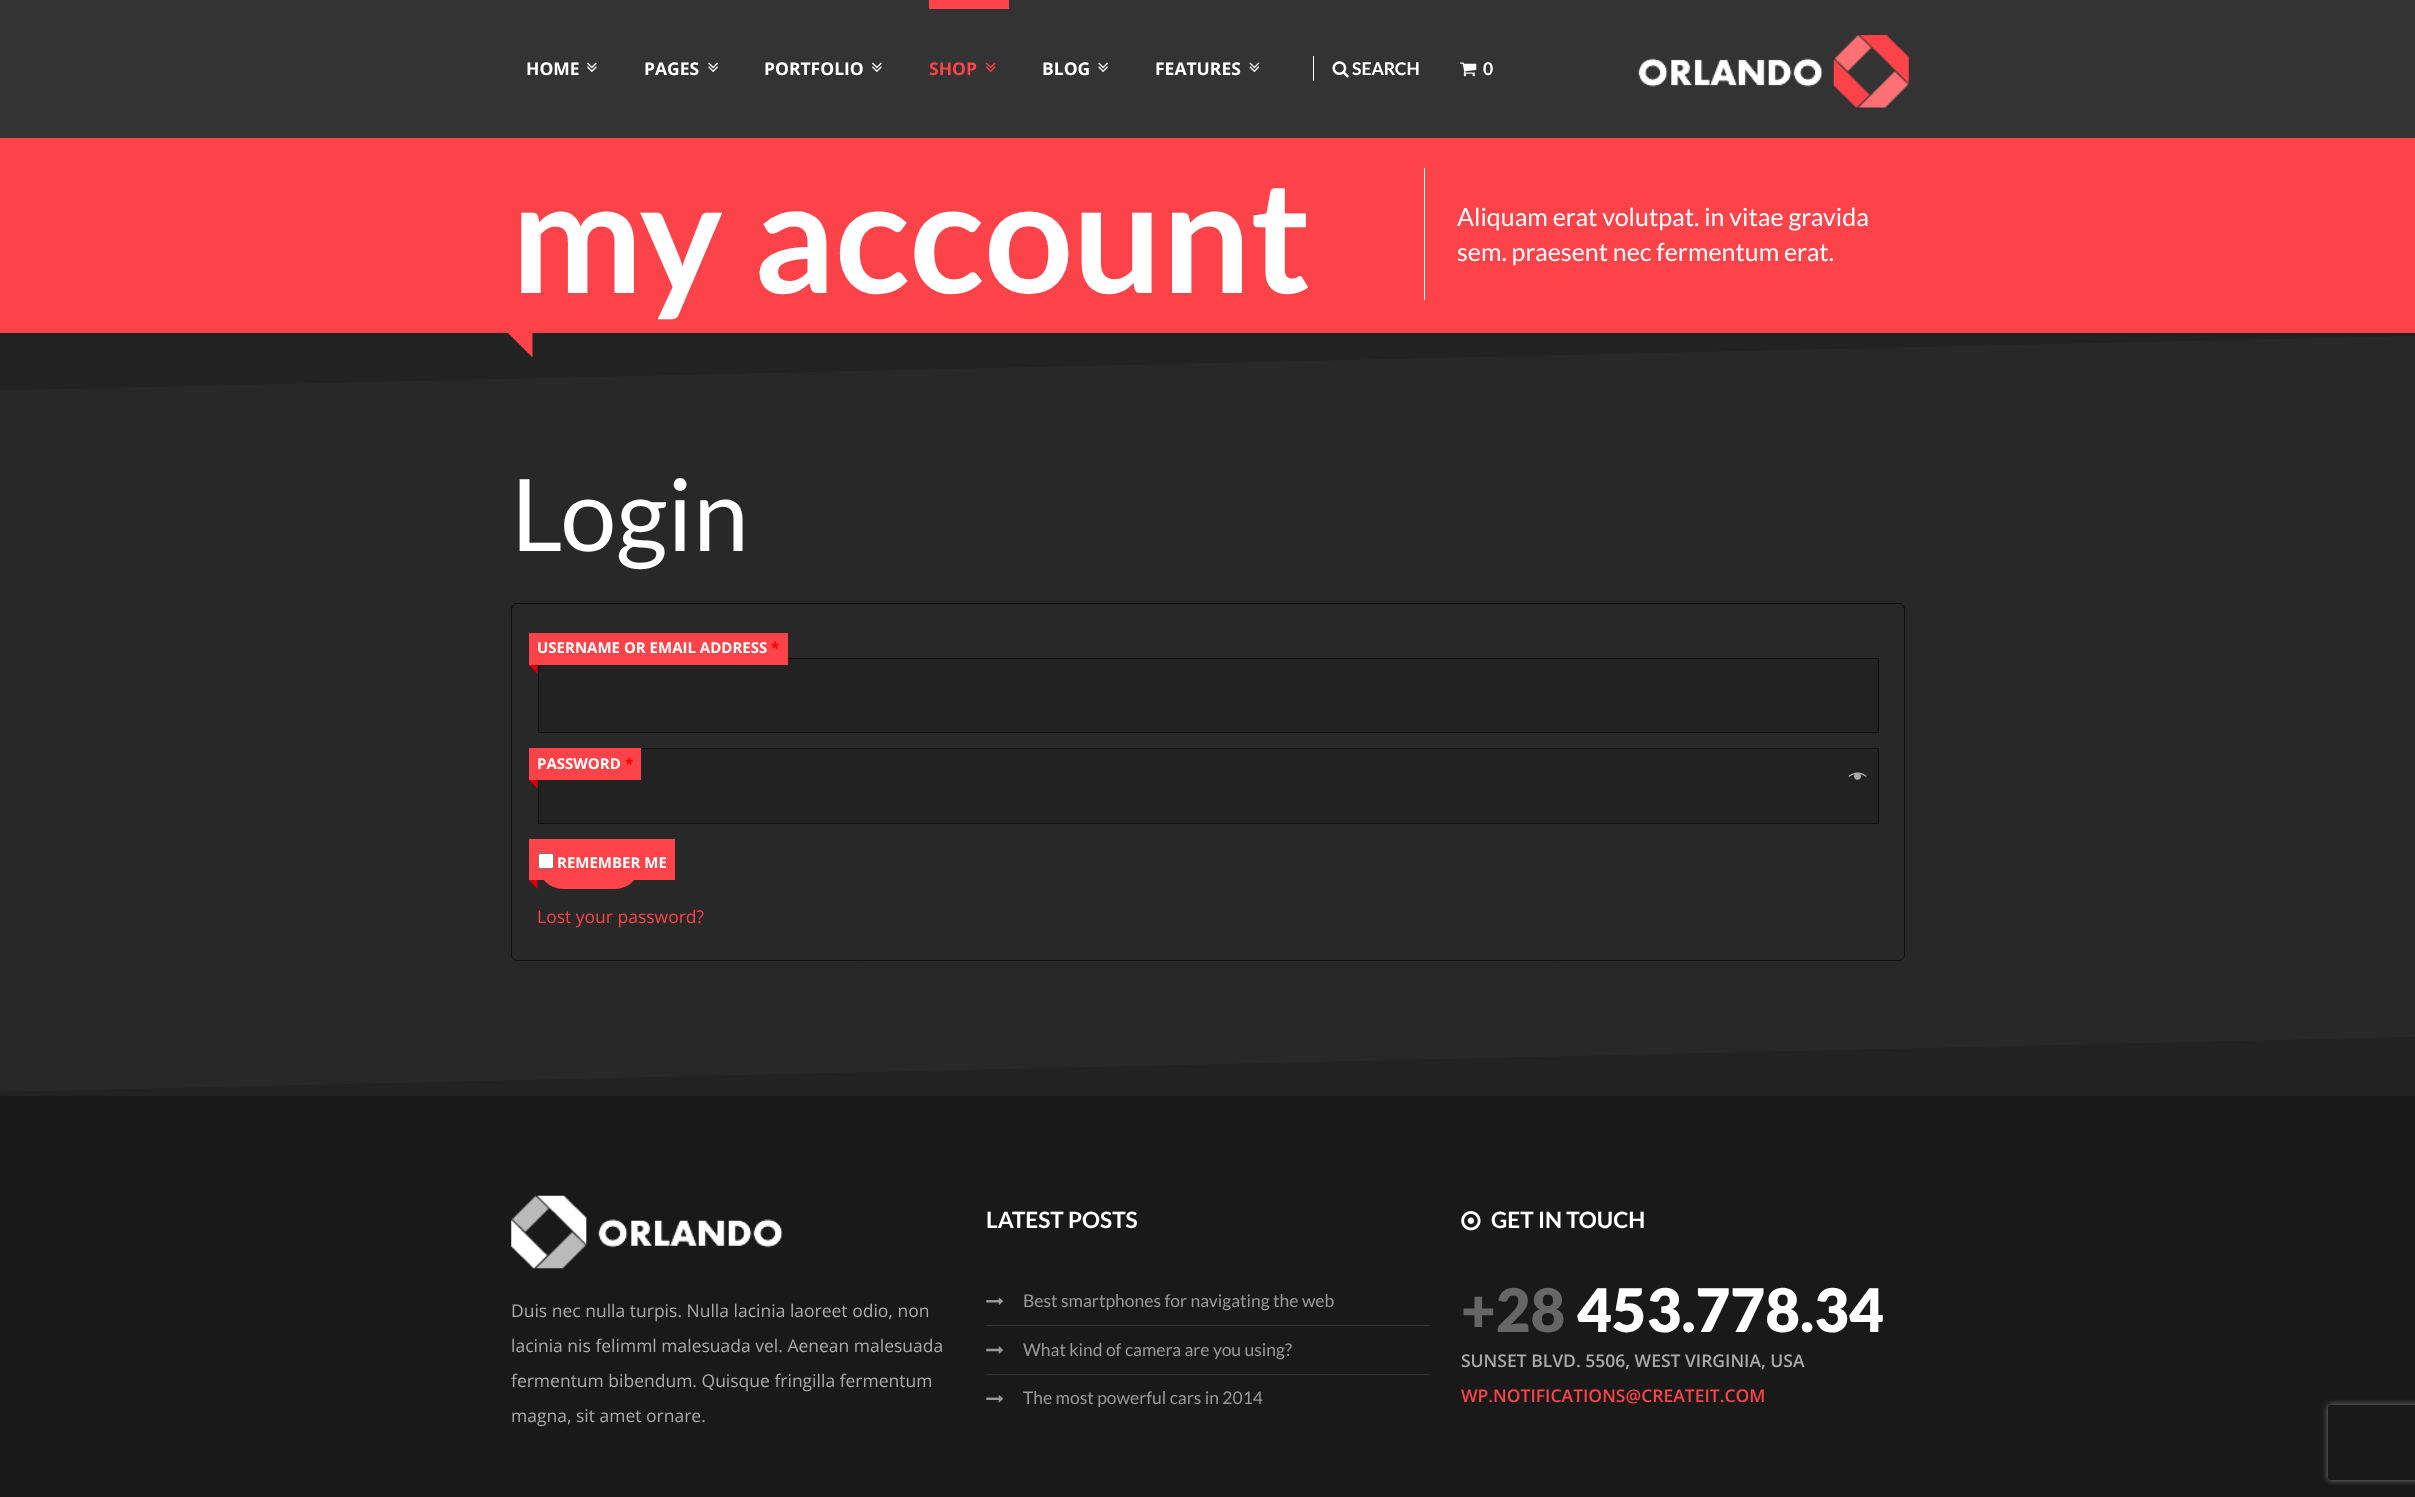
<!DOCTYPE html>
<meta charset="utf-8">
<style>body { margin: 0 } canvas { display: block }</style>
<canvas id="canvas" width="2415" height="1497"></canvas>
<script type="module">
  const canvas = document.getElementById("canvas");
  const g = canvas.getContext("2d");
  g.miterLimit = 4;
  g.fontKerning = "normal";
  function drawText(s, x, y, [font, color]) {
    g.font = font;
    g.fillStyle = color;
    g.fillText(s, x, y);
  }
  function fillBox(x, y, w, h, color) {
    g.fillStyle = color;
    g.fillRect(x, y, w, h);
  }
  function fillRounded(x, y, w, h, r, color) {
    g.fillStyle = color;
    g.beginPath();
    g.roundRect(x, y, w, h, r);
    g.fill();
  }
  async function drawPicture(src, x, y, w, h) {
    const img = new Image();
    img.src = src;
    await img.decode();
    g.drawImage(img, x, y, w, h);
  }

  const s1 = ["bold 17.5px Open Sans", "#FFFFFF"];
  const s2 = ["bold 17.5px Open Sans", "#FC4349"];
  const s3 = ["bold 17.5px Lato", "#FFFFFF"];
  const s4 = ["bold 156.25px Lato", "#FFFFFF"];
  const s5 = ["25px Lato", "#FFFFFF"];
  const s6 = ["100px Lato", "#FFFFFF"];
  const s7 = ["bold 15px Open Sans", "#FFFFFF"];
  const s8 = ["bold 15px Open Sans", "#FF0000"];
  const s9 = ["17.5px Open Sans", "#FC4349"];
  const s10 = ["17.5px Open Sans", "#AAAAAA"];
  const s11 = ["bold 22.5px Lato", "#FFFFFF"];
  const s12 = ["17.5px Lato", "#999999"];
  const s13 = ["900 60px Lato", "#666666"];
  const s14 = ["900 60px Lato", "#FFFFFF"];
  const s15 = ["600 17.5px Open Sans", "#AAAAAA"];
  const s16 = ["600 17.5px Open Sans", "#FC4349"];

  fillBox(0, 0, 2415, 1497, "#FC4349");
  fillBox(0, 0, 2415, 138, "#333333");
  drawText("HOME", 526, 75, s1);
  await drawPicture("pic1.png", 587, 62, 10, 10);
  drawText("PAGES", 644, 75, s1);
  await drawPicture("pic2.png", 708, 62, 10, 10);
  drawText("PORTFOLIO", 764, 75, s1);
  await drawPicture("pic1.png", 872, 62, 10, 10);
  fillBox(929, 0, 80, 9, "#FC4349");
  drawText("SHOP", 929, 75, s2);
  await drawPicture("pic3.png", 985, 62, 11, 10);
  drawText("BLOG", 1042, 75, s1);
  await drawPicture("pic2.png", 1098, 62, 10, 10);
  drawText("FEATURES", 1155, 75, s1);
  await drawPicture("pic4.png", 1249, 62, 11, 10);
  fillBox(1313, 56, 1, 25, "#FFFFFF");
  await drawPicture("pic5.png", 1332, 61, 17, 17);
  drawText("SEARCH", 1352, 75, s3);
  await drawPicture("pic6.png", 1460, 62, 17, 15);
  drawText("0", 1483, 75, s3);
  await drawPicture("pic7.png", 1638, 35, 271, 73);
  drawText("my account", 511, 293, s4);
  fillBox(1424, 168, 1, 132, "#FFFFFF");
  drawText("Aliquam erat volutpat. in vitae gravida", 1457, 226, s5);
  drawText("sem. praesent nec fermentum erat.", 1457, 261, s5);
  fillBox(0, 335, 2415, 757, "#282828");
  g.save();
  g.beginPath();
  g.rect(0, 333, 2415, 763);
  g.clip();
  g.fillStyle = "#222222";
  g.beginPath();
  g.moveTo(-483, 339);
  g.lineTo(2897, 262);
  g.lineTo(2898, 325);
  g.lineTo(-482, 401);
  g.closePath();
  g.fill();
  g.restore();
  g.fillStyle = "#FC4349";
  g.beginPath();
  g.moveTo(532.5, 320);
  g.lineTo(532.5, 357.5);
  g.lineTo(495, 320);
  g.closePath();
  g.fill();
  drawText("Login", 511, 551, s6);
  g.beginPath();
  g.roundRect(511.5, 603.5, 1393, 357, 5.5);
  g.strokeStyle = "#111111";
  g.stroke();
  g.fillStyle = "#222222";
  g.beginPath();
  g.rect(538.5, 658.5, 1340, 74);
  g.fill();
  g.stroke();
  fillBox(529, 633, 259, 32, "#FC4349");
  drawText("USERNAME OR EMAIL ADDRESS", 537, 653, s7);
  drawText("*", 771, 653, s8);
  g.fillStyle = "#D6030A";
  g.beginPath();
  g.moveTo(537.5, 665);
  g.lineTo(537.5, 674);
  g.lineTo(529, 665);
  g.closePath();
  g.fill();
  g.fillStyle = "#222222";
  g.beginPath();
  g.rect(538.5, 748.5, 1340, 75);
  g.fill();
  g.stroke();
  await drawPicture("pic8.png", 1848, 772, 19, 8);
  fillBox(529, 748, 112, 32, "#FC4349");
  drawText("PASSWORD", 537, 769, s7);
  drawText("*", 625, 769, s8);
  g.fillStyle = "#D6030A";
  g.beginPath();
  g.moveTo(537.5, 780);
  g.lineTo(537.5, 789);
  g.lineTo(529, 780);
  g.closePath();
  g.fill();
  fillRounded(538, 839, 102, 50, 25, "#FC4349");
  fillBox(529, 839, 146, 41, "#FC4349");
  g.fillStyle = "#FFFFFF";
  g.beginPath();
  g.roundRect(538.5, 853.5, 15, 15, 2);
  g.fill();
  g.strokeStyle = "#767676";
  g.stroke();
  drawText("REMEMBER ME", 557, 868, s7);
  g.fillStyle = "#D6030A";
  g.beginPath();
  g.moveTo(537.5, 880);
  g.lineTo(537.5, 889);
  g.lineTo(529, 880);
  g.closePath();
  g.fill();
  drawText("Lost your password?", 537, 923, s9);
  g.fillStyle = "#222222";
  g.beginPath();
  g.moveTo(-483, 1103);
  g.lineTo(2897, 1026);
  g.lineTo(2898, 1089);
  g.lineTo(-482, 1165);
  g.closePath();
  g.fill();
  fillBox(0, 1096, 2415, 401, "#191919");
  await drawPicture("pic9.png", 511, 1195, 272, 74);
  drawText("Duis nec nulla turpis. Nulla lacinia laoreet odio, non", 511, 1317, s10);
  drawText("lacinia nis felimml malesuada vel. Aenean malesuada", 511, 1352, s10);
  drawText("fermentum bibendum. Quisque fringilla fermentum", 511, 1387, s10);
  drawText("magna, sit amet ornare.", 511, 1422, s10);
  drawText("LATEST POSTS", 986, 1228, s11);
  await drawPicture("pic10.png", 986, 1297, 18, 8);
  drawText("Best smartphones for navigating the web", 1023, 1307, s12);
  fillBox(986, 1325, 444, 1, "#333333");
  await drawPicture("pic11.png", 986, 1346, 17, 8);
  drawText("What kind of camera are you using?", 1023, 1356, s12);
  fillBox(986, 1374, 444, 1, "#333333");
  await drawPicture("pic12.png", 986, 1395, 18, 8);
  drawText("The most powerful cars in 2014", 1023, 1404, s12);
  await drawPicture("pic13.png", 1461, 1211, 20, 20);
  drawText("GET IN TOUCH", 1491, 1228, s11);
  drawText("+28", 1461, 1332, s13);
  drawText("453.778.34", 1577, 1332, s14);
  drawText("SUNSET BLVD. 5506, WEST VIRGINIA, USA", 1461, 1367, s15);
  drawText("WP.NOTIFICATIONS@CREATEIT.COM", 1461, 1402, s16);
  g.save();
  g.beginPath();
  g.moveTo(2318, 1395);
  g.lineTo(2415, 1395);
  g.lineTo(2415, 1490);
  g.lineTo(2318, 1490);
  g.closePath();
  g.moveTo(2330.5, 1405);
  g.lineTo(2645.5, 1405);
  g.bezierCurveTo(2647, 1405, 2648, 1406, 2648, 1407.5);
  g.lineTo(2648, 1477.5);
  g.bezierCurveTo(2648, 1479, 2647, 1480, 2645.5, 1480);
  g.lineTo(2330.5, 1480);
  g.bezierCurveTo(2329, 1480, 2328, 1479, 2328, 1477.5);
  g.lineTo(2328, 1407.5);
  g.bezierCurveTo(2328, 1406, 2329, 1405, 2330.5, 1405);
  g.closePath();
  g.clip("evenodd");
  g.fillStyle = "#808080";
  g.filter = "blur(3px)";
  g.beginPath();
  g.roundRect(2328, 1405, 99, 75, 2.5);
  g.fill();
  g.filter = "none";
  g.restore();
</script>
